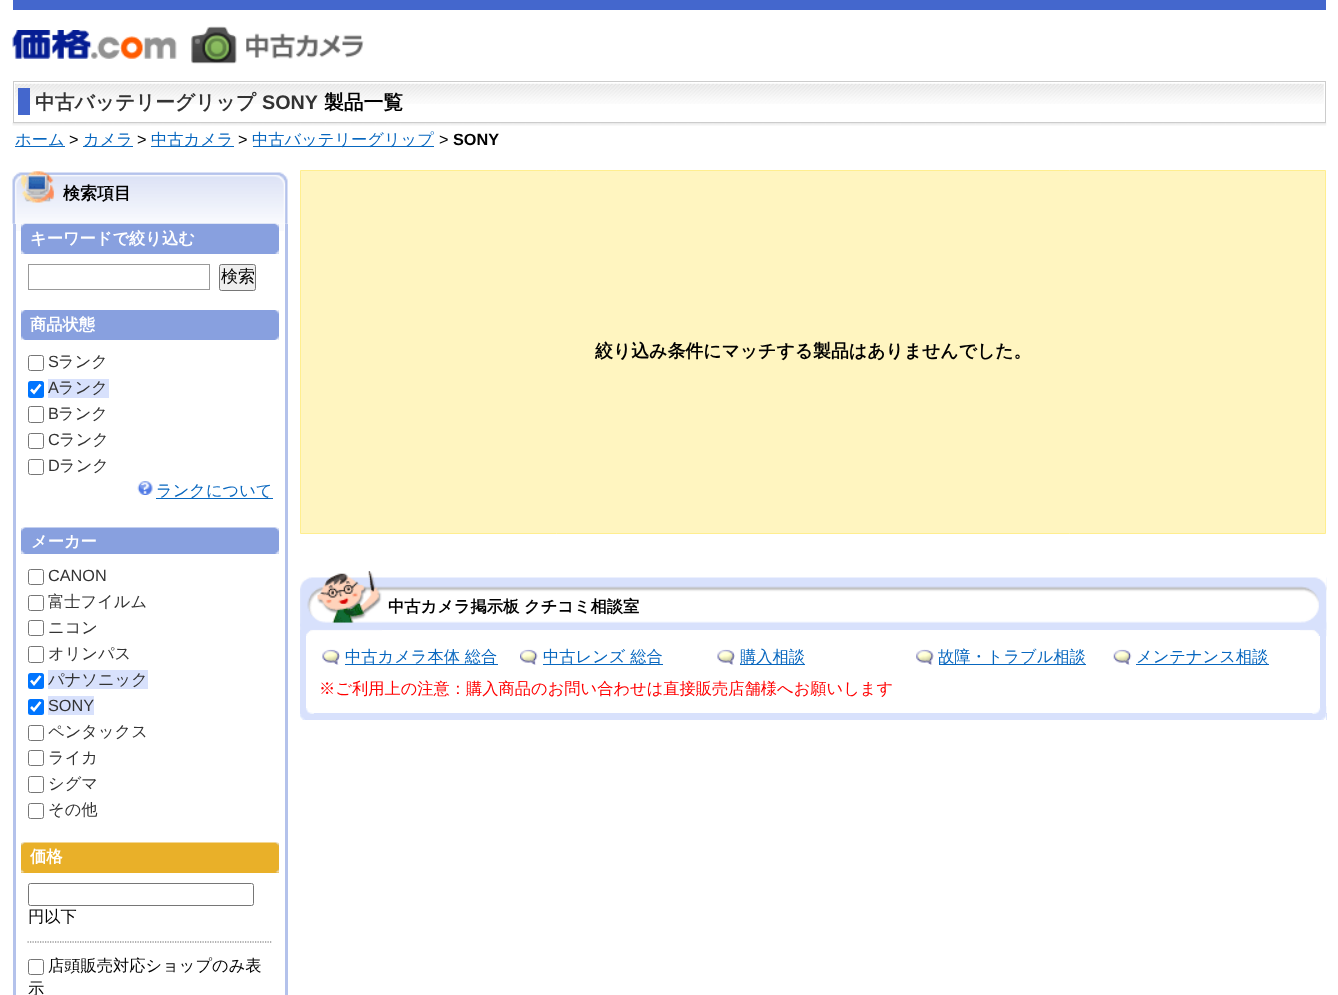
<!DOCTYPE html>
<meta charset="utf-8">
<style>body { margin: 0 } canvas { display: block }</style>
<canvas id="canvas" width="1338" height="995"></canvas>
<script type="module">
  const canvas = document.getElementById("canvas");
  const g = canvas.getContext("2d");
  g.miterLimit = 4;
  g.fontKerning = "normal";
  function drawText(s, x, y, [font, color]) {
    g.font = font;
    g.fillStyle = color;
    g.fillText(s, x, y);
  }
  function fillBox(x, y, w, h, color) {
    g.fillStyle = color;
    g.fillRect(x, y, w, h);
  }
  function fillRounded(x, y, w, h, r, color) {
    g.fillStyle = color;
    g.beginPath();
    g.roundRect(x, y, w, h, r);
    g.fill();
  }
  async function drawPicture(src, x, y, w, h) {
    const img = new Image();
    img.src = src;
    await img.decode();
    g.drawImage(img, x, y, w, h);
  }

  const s1 = ["bold 19.75px WenQuanYi Zen Hei", "#333333"];
  const s2 = ["bold 19.75px Liberation Sans", "#333333"];
  const s3 = ["bold 19.75px WenQuanYi Zen Hei", "#000000"];
  const s4 = ["500 16.25px WenQuanYi Zen Hei", "#0867BF"];
  const s5 = ["16.25px Liberation Sans", "#000000"];
  const s6 = ["bold 16.25px Liberation Sans", "#000000"];
  const s7 = ["bold 17px WenQuanYi Zen Hei", "#000000"];
  const s8 = ["bold 16.25px WenQuanYi Zen Hei", "#FFFFFF"];
  const s9 = ["500 17px WenQuanYi Zen Hei", "#000000"];
  const s10 = ["16.25px Liberation Sans", "#333333"];
  const s11 = ["500 16.25px WenQuanYi Zen Hei", "#333333"];
  const s12 = ["500 16.25px WenQuanYi Zen Hei", "#000000"];
  const s13 = ["bold 17.9px WenQuanYi Zen Hei", "#000000"];
  const s14 = ["bold 16.25px WenQuanYi Zen Hei", "#000000"];
  const s15 = ["500 16.25px WenQuanYi Zen Hei", "#FF0000"];

  fillBox(0, 0, 1338, 995, "#FFFFFF");
  fillBox(13, 0, 1313, 10, "#4467CD");
  await drawPicture("pic1.png", 12, 30, 165, 29);
  await drawPicture("pic2.png", 191, 26, 173, 38);
  await drawPicture("pic3.png", 12, 122, 1315, 4);
  g.strokeStyle = "#CCCCCC";
  g.strokeRect(13.5, 81.5, 1312, 41);
  await drawPicture("pic4.png", 15, 83, 1309, 21);
  fillBox(18, 88, 12, 27, "#4467CD");
  drawText("中古バッテリーグリップ", 35, 109, s1);
  drawText("SONY", 262, 109, s2);
  drawText("製品一覧", 324, 109, s3);
  fillBox(15, 146, 50, 1, "#0867BF");
  drawText("ホーム", 15, 145, s4);
  drawText(">", 69, 145, s5);
  fillBox(83, 146, 50, 1, "#0867BF");
  drawText("カメラ", 83, 145, s4);
  drawText(">", 137, 145, s5);
  fillBox(151, 146, 83, 1, "#0867BF");
  drawText("中古カメラ", 151, 145, s4);
  drawText(">", 238, 145, s5);
  fillBox(253, 146, 181, 1, "#0867BF");
  drawText("中古バッテリーグリップ", 252, 145, s4);
  drawText(">", 439, 145, s5);
  drawText("SONY", 453, 145, s6);
  await drawPicture("pic5.png", 12, 171, 276, 53);
  drawText("検索項目", 63, 199, s7);
  fillBox(16, 224, 268, 7, "#F8F9FD");
  fillBox(285, 224, 3, 771, "#B4C2EB");
  fillBox(13, 224, 3, 771, "#B4C2EB");
  fillBox(21, 224, 258, 30, "#88A0DF");
  await drawPicture("pic6.png", 21, 250, 258, 4);
  await drawPicture("pic7.png", 21, 223, 258, 5);
  drawText("キーワードで絞り込む", 30, 244, s8);
  g.strokeStyle = "#999999";
  g.strokeRect(28.5, 264.5, 181, 25);
  g.fillStyle = "#EFEFEF";
  g.beginPath();
  g.roundRect(219.5, 264.5, 36, 26, 2);
  g.fill();
  g.strokeStyle = "#767676";
  g.stroke();
  drawText("検索", 221, 282, s9);
  fillBox(21, 310, 258, 30, "#88A0DF");
  await drawPicture("pic8.png", 21, 336, 258, 4);
  await drawPicture("pic9.png", 21, 310, 258, 4);
  drawText("商品状態", 30, 330, s8);
  g.beginPath();
  g.roundRect(28.5, 355.5, 15, 15, 2);
  g.stroke();
  drawText("S", 48, 367, s10);
  drawText("ランク", 58, 367, s11);
  fillRounded(28, 381, 16, 17, 2.5, "#0075FF");
  g.beginPath();
  g.moveTo(31, 389.5);
  g.lineTo(34, 392.5);
  g.lineTo(40.5, 384.5);
  g.strokeStyle = "#FFFFFF";
  g.lineWidth = 2.6;
  g.stroke();
  fillBox(48, 379, 61, 19, "#D8E1FC");
  drawText("A", 48, 393, s10);
  drawText("ランク", 58, 393, s11);
  g.beginPath();
  g.roundRect(28.5, 406.5, 15, 16, 2);
  g.strokeStyle = "#767676";
  g.lineWidth = 1;
  g.stroke();
  drawText("B", 48, 419, s10);
  drawText("ランク", 58, 419, s11);
  g.beginPath();
  g.roundRect(28.5, 433.5, 15, 15, 2);
  g.stroke();
  drawText("C", 48, 445, s10);
  drawText("ランク", 59, 445, s11);
  g.beginPath();
  g.roundRect(28.5, 459.5, 15, 15, 2);
  g.stroke();
  drawText("D", 48, 471, s10);
  drawText("ランク", 59, 471, s11);
  await drawPicture("pic10.png", 137, 481, 16, 14);
  fillBox(156, 498, 117, 1, "#0867BF");
  drawText("ランクについて", 156, 496, s4);
  fillBox(21, 528, 258, 26, "#88A0DF");
  await drawPicture("pic6.png", 21, 550, 258, 4);
  await drawPicture("pic11.png", 21, 527, 258, 5);
  drawText("メーカー", 31, 547, s8);
  g.beginPath();
  g.roundRect(28.5, 569.5, 15, 15, 2);
  g.stroke();
  drawText("CANON", 48, 581, s10);
  g.beginPath();
  g.roundRect(28.5, 595.5, 15, 15, 2);
  g.stroke();
  drawText("富士フイルム", 48, 607, s11);
  g.beginPath();
  g.roundRect(28.5, 620.5, 15, 15, 2);
  g.stroke();
  drawText("ニコン", 48, 633, s11);
  g.beginPath();
  g.roundRect(28.5, 646.5, 15, 16, 2);
  g.stroke();
  drawText("オリンパス", 48, 659, s11);
  fillRounded(28, 673, 16, 16, 2.5, "#0075FF");
  g.beginPath();
  g.moveTo(31, 680.5);
  g.lineTo(34, 684);
  g.lineTo(40.5, 676);
  g.strokeStyle = "#FFFFFF";
  g.lineWidth = 2.6;
  g.stroke();
  fillBox(48, 670, 100, 19, "#D8E1FC");
  drawText("パナソニック", 48, 685, s11);
  fillRounded(28, 699, 16, 16, 2.5, "#0075FF");
  g.beginPath();
  g.moveTo(31, 707);
  g.lineTo(34, 710);
  g.lineTo(40.5, 702);
  g.stroke();
  fillBox(48, 696, 46, 19, "#D8E1FC");
  drawText("SONY", 48, 711, s10);
  g.beginPath();
  g.roundRect(28.5, 725.5, 15, 15, 2);
  g.strokeStyle = "#767676";
  g.lineWidth = 1;
  g.stroke();
  drawText("ペンタックス", 48, 737, s11);
  g.beginPath();
  g.roundRect(28.5, 750.5, 15, 15, 2);
  g.stroke();
  drawText("ライカ", 48, 763, s11);
  g.beginPath();
  g.roundRect(28.5, 776.5, 15, 16, 2);
  g.stroke();
  drawText("シグマ", 48, 789, s11);
  g.beginPath();
  g.roundRect(28.5, 803.5, 15, 15, 2);
  g.stroke();
  drawText("その他", 48, 815, s11);
  fillBox(21, 843, 258, 30, "#E9B029");
  await drawPicture("pic12.png", 21, 868, 258, 5);
  await drawPicture("pic13.png", 21, 842, 258, 5);
  drawText("価格", 30, 862, s8);
  g.beginPath();
  g.roundRect(28.5, 883.5, 225, 22, 2);
  g.stroke();
  drawText("円以下", 28, 922, s12);
  g.beginPath();
  g.moveTo(27.5, 942);
  g.lineTo(272.5, 942);
  g.strokeStyle = "#666666";
  g.lineWidth = 1.2;
  g.setLineDash([1.25, 1.25]);
  g.stroke();
  g.beginPath();
  g.roundRect(28.5, 959.5, 15, 15, 2);
  g.strokeStyle = "#767676";
  g.lineWidth = 1;
  g.setLineDash([]);
  g.stroke();
  drawText("店頭販売対応ショップのみ表", 48, 971, s12);
  drawText("示", 28, 994, s12);
  g.fillStyle = "#FFF5C0";
  g.beginPath();
  g.rect(300.5, 170.5, 1025, 363);
  g.fill();
  g.strokeStyle = "#FFEE8F";
  g.stroke();
  drawText("絞り込み条件にマッチする製品はありませんでした。", 595, 357, s13);
  fillBox(313, 713, 1014, 7, "#D8E1FC");
  await drawPicture("pic14.png", 382, 577, 945, 53);
  await drawPicture("pic15.png", 300, 571, 82, 65);
  await drawPicture("pic16.png", 1300, 577, 27, 60);
  await drawPicture("pic17.png", 300, 708, 14, 12);
  await drawPicture("pic18.png", 1312, 706, 15, 14);
  drawText("中古カメラ掲示板 クチコミ相談室", 388, 612, s14);
  fillBox(1319, 636, 1, 72, "#FFFFFF");
  fillBox(1320, 636, 6, 72, "#D8E1FC");
  fillBox(300, 636, 6, 72, "#D8E1FC");
  await drawPicture("pic19.png", 322, 649, 18, 16);
  fillBox(345, 664, 153, 1, "#0867BF");
  drawText("中古カメラ本体 総合", 345, 662, s4);
  await drawPicture("pic20.png", 520, 649, 18, 16);
  fillBox(543, 664, 120, 1, "#0867BF");
  drawText("中古レンズ 総合", 543, 662, s4);
  await drawPicture("pic19.png", 717, 649, 18, 16);
  fillBox(740, 664, 65, 1, "#0867BF");
  drawText("購入相談", 740, 662, s4);
  await drawPicture("pic21.png", 916, 649, 18, 16);
  fillBox(939, 664, 147, 1, "#0867BF");
  drawText("故障・トラブル相談", 938, 662, s4);
  await drawPicture("pic22.png", 1113, 649, 19, 16);
  fillBox(1136, 664, 133, 1, "#0867BF");
  drawText("メンテナンス相談", 1136, 662, s4);
  drawText("※ご利用上の注意：購入商品のお問い合わせは直接販売店舗様へお願いします", 319, 694, s15);
</script>
